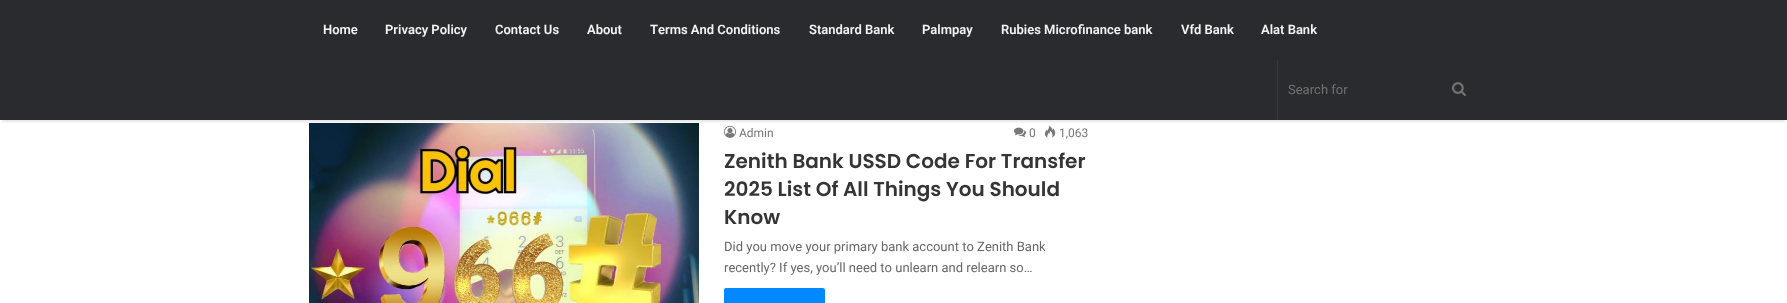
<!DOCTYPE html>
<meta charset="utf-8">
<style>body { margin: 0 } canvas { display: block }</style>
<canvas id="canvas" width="1787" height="303"></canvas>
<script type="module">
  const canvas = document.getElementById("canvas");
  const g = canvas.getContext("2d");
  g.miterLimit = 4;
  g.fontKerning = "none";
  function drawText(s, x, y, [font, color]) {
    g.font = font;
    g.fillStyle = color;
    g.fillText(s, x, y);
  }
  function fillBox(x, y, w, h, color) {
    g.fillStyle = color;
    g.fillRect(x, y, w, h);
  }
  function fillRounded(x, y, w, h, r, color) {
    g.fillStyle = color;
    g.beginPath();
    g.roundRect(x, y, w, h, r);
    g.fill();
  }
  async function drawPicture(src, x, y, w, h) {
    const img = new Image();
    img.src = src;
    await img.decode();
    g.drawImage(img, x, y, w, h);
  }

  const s1 = ["600 13px Roboto", "#F4F4F5"];
  const s2 = ["13px Roboto", "#717171"];
  const s3 = ["12px Roboto", "#777777"];
  const s4 = ["600 20px Poppins", "#353535"];
  const s5 = ["13px Roboto", "#686868"];

  fillBox(0, 0, 1787, 303, "#FFFFFF");
  fillBox(0, 0, 1787, 120, "#2A2B2F");
  await drawPicture("pic2.png", 309, 123, 390, 180);
  await drawPicture("pic3.png", 724, 125, 12, 13);
  await drawPicture("pic5.png", 1044, 125, 12, 13);
  g.save();
  g.beginPath();
  g.rect(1, 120, 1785, 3);
  g.clip();
  g.fillStyle = "rgba(0, 0, 0, 0.1)";
  g.filter = "blur(1px)";
  g.beginPath();
  g.rect(2, 6, 1783, 116);
  g.fill();
  g.filter = "none";
  g.restore();
  drawText("Home", 323, 34, s1);
  drawText("Privacy Policy", 385, 34, s1);
  drawText("Contact Us", 495, 34, s1);
  drawText("About", 587, 34, s1);
  drawText("Terms And Conditions", 650, 34, s1);
  drawText("Standard Bank", 809, 34, s1);
  drawText("Palmpay", 922, 34, s1);
  drawText("Rubies Microfinance bank", 1001, 34, s1);
  drawText("Vfd Bank", 1181, 34, s1);
  drawText("Alat Bank", 1261, 34, s1);
  fillBox(1277, 60, 1, 60, "#38393D");
  drawText("Search for", 1288, 94, s2);
  await drawPicture("pic1.png", 1452, 82, 14, 14);
  drawText("Admin", 739, 137, s3);
  await drawPicture("pic4.png", 1014, 127, 12, 10);
  drawText("0", 1029, 137, s3);
  drawText("1,063", 1059, 137, s3);
  drawText("Zenith Bank USSD Code For Transfer", 724, 168, s4);
  drawText("2025 List Of All Things You Should", 724, 196, s4);
  drawText("Know", 724, 224, s4);
  drawText("Did you move your primary bank account to Zenith Bank", 724, 251, s5);
  drawText("recently? If yes, you’ll need to unlearn and relearn so…", 724, 272, s5);
  fillRounded(724, 288, 101, 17, 2, "#0389FF");
</script>
